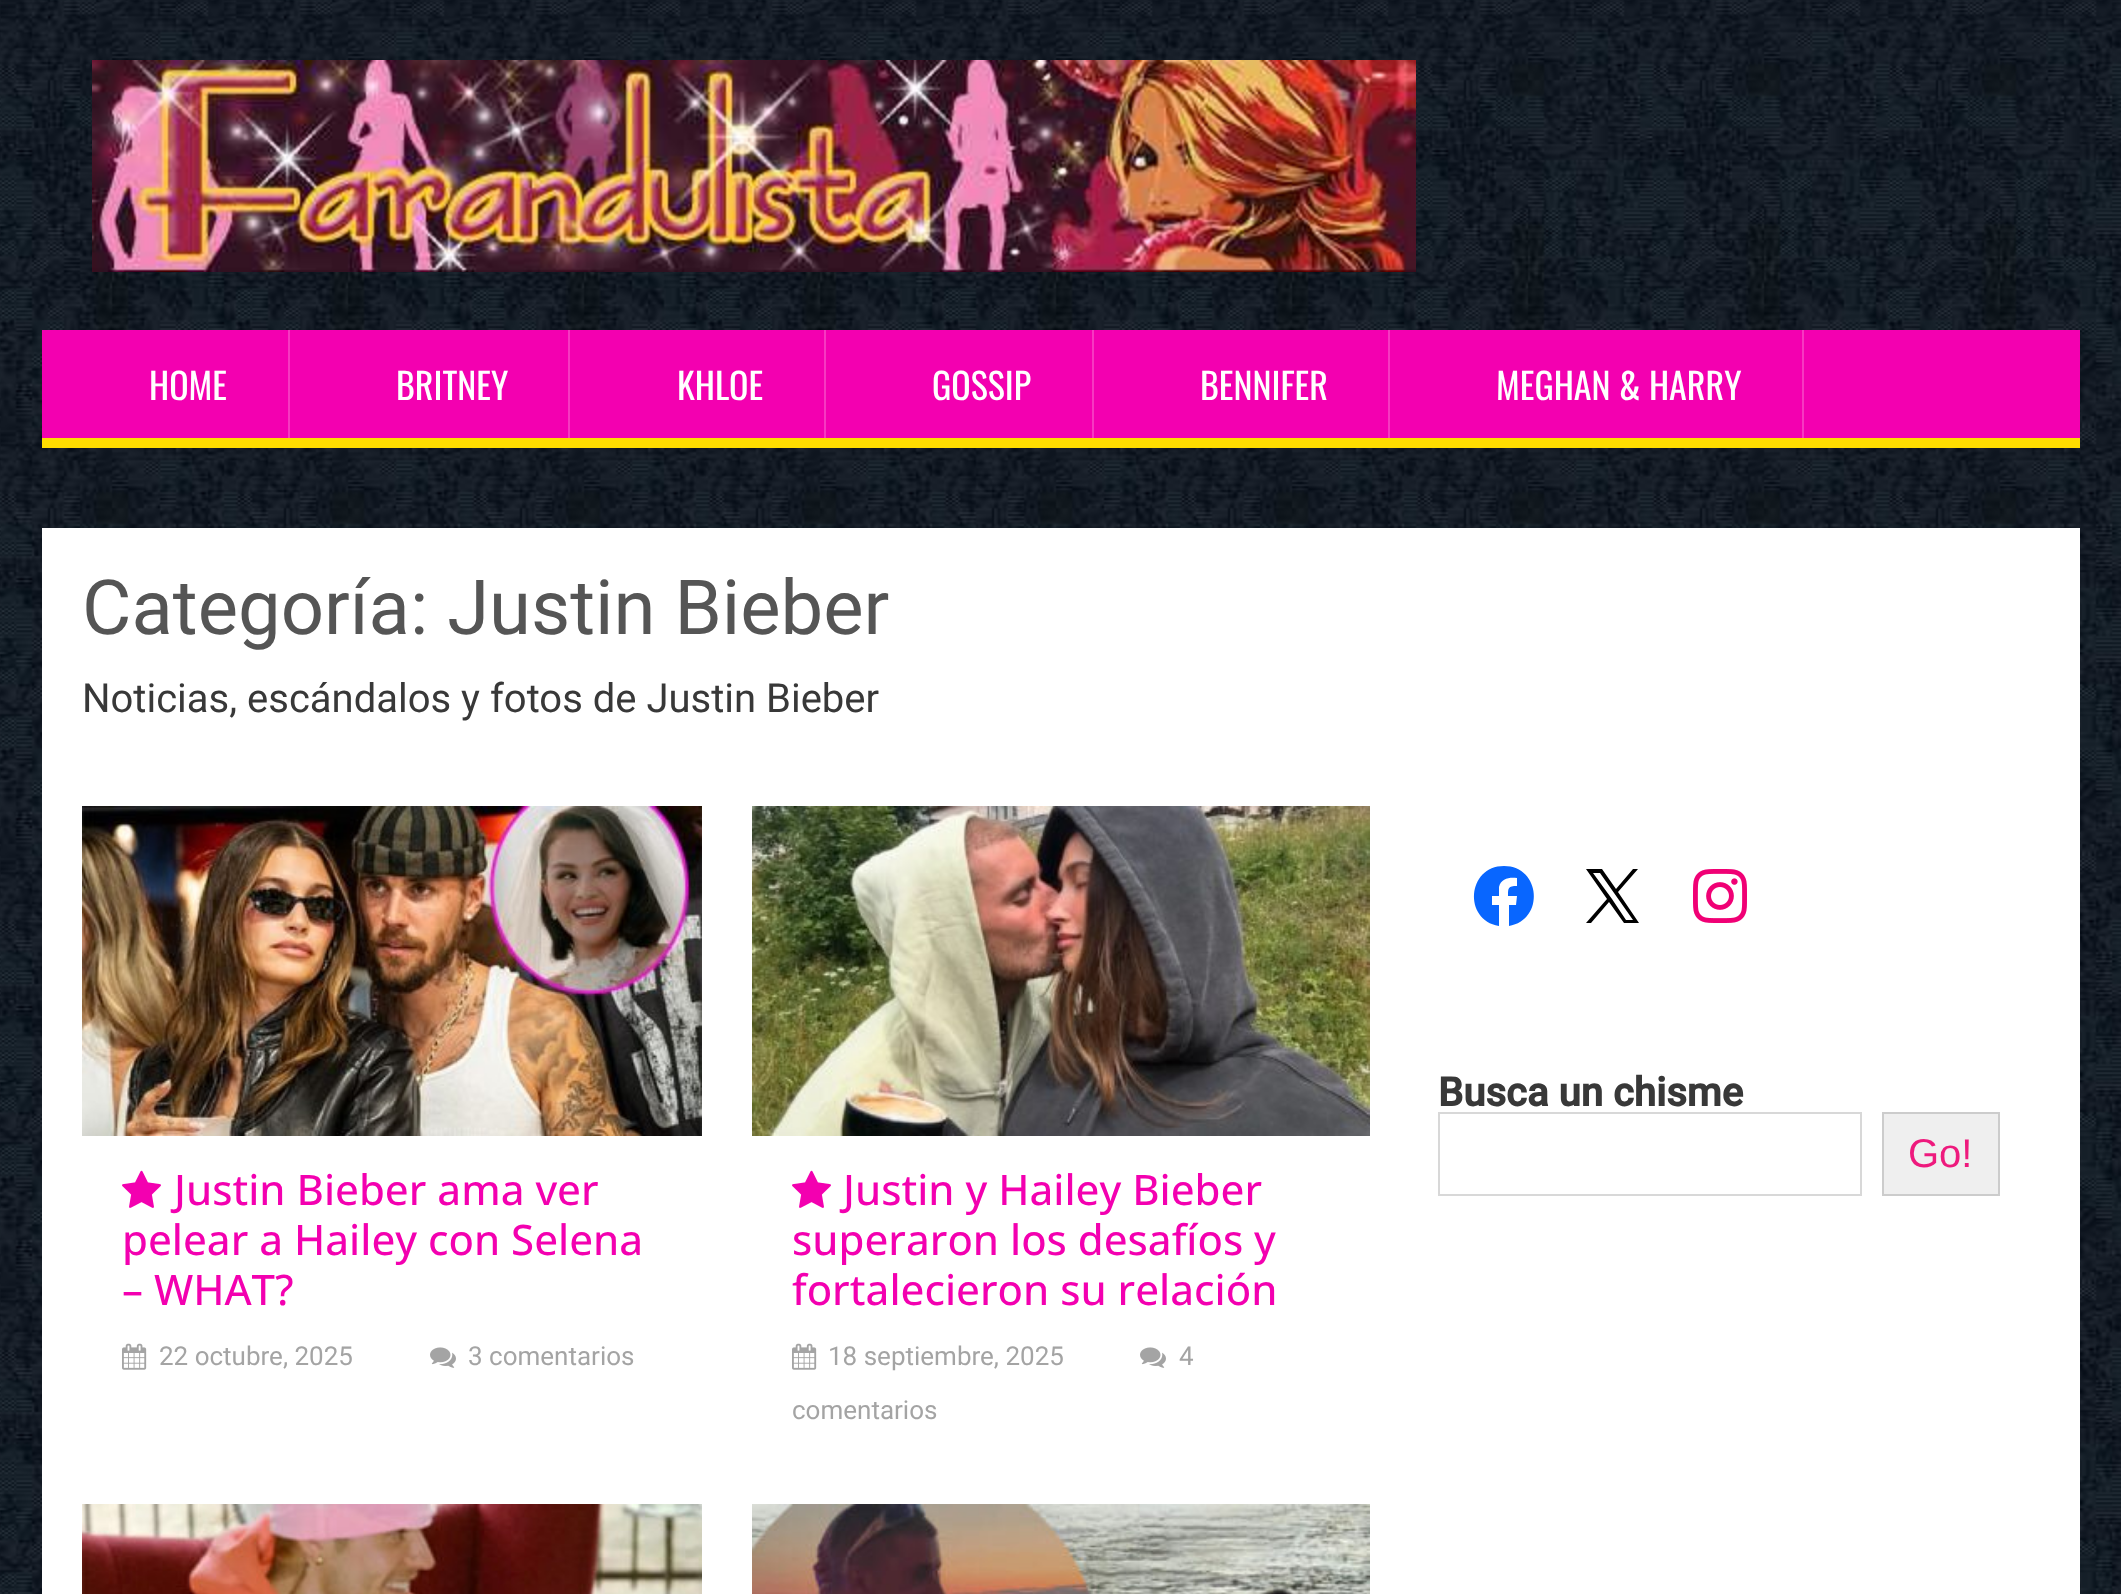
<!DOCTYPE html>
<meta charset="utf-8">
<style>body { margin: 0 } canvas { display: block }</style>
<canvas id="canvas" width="2121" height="1594"></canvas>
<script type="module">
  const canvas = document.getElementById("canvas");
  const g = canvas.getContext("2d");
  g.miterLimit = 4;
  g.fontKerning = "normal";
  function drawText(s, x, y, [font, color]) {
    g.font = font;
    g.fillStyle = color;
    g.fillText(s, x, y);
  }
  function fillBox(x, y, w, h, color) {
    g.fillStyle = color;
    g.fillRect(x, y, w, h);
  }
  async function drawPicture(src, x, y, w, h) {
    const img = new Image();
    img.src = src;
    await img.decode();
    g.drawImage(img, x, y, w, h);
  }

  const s1 = ["36px Oswald", "#FFFFFF"];
  const s2 = ["76px Roboto", "#555555"];
  const s3 = ["40px Roboto", "#383838"];
  const s4 = ["bold 40px Roboto", "#383838"];
  const s5 = ["40px Liberation Sans", "#EE1A7D"];
  const s6 = ["500 42px Open Sans", "#F300B0"];
  const s7 = ["26px Roboto", "#A4A4A4"];

  fillBox(0, 0, 2121, 1594, "#FFFFFF");
  await drawPicture("pic1.png", 0, 0, 2121, 1594);
  await drawPicture("pic2.png", 92, 60, 1324, 212);
  fillBox(42, 330, 2038, 108, "#F300B0");
  fillBox(42, 438, 2038, 10, "#FFDD00");
  fillBox(288, 330, 2, 108, "#F638C1");
  drawText("HOME", 149, 400, s1);
  fillBox(568, 330, 2, 108, "#F638C1");
  drawText("BRITNEY", 396, 400, s1);
  fillBox(824, 330, 2, 108, "#F638C1");
  drawText("KHLOE", 677, 400, s1);
  fillBox(1092, 330, 2, 108, "#F638C1");
  drawText("GOSSIP", 932, 400, s1);
  fillBox(1388, 330, 2, 108, "#F638C1");
  drawText("BENNIFER", 1200, 400, s1);
  fillBox(1802, 330, 2, 108, "#F638C1");
  drawText("MEGHAN & HARRY", 1496, 400, s1);
  fillBox(42, 528, 2038, 1066, "#FFFFFF");
  drawText("Categoría: Justin Bieber", 82, 634, s2);
  drawText("Noticias, escándalos y fotos de Justin Bieber", 82, 712, s3);
  g.fillStyle = "#0866FF";
  g.beginPath();
  g.moveTo(1504, 866);
  g.bezierCurveTo(1467, 866, 1463, 920, 1499, 926);
  g.lineTo(1499, 905);
  g.lineTo(1492, 905);
  g.lineTo(1492, 896);
  g.lineTo(1499, 896);
  g.lineTo(1499, 887);
  g.bezierCurveTo(1501, 878, 1510, 877, 1517, 878);
  g.lineTo(1517, 886);
  g.bezierCurveTo(1508, 886, 1508, 888, 1508, 896);
  g.lineTo(1517, 896);
  g.lineTo(1516, 905);
  g.lineTo(1509, 905);
  g.lineTo(1509, 926);
  g.bezierCurveTo(1545, 920, 1541, 866, 1504, 866);
  g.closePath();
  g.fill();
  g.fillStyle = "#000000";
  g.beginPath();
  g.moveTo(1618, 892);
  g.lineTo(1638, 869);
  g.lineTo(1633, 869);
  g.lineTo(1616, 889);
  g.lineTo(1602, 869);
  g.lineTo(1586, 869);
  g.lineTo(1607, 899);
  g.lineTo(1586, 923);
  g.lineTo(1591, 923);
  g.lineTo(1609, 902);
  g.lineTo(1624, 923);
  g.lineTo(1639, 923);
  g.closePath();
  g.moveTo(1612, 899);
  g.lineTo(1593, 873);
  g.lineTo(1600, 873);
  g.lineTo(1633, 920);
  g.lineTo(1626, 920);
  g.closePath();
  g.fill();
  await drawPicture("pic3.png", 1693, 869, 54, 54);
  drawText("Busca un chisme", 1438, 1106, s4);
  g.strokeStyle = "#D8D8D8";
  g.lineWidth = 2;
  g.strokeRect(1439, 1113, 422, 82);
  g.fillStyle = "#EFEFEF";
  g.beginPath();
  g.rect(1883, 1113, 116, 82);
  g.fill();
  g.strokeStyle = "#CCCCCC";
  g.stroke();
  drawText("Go!", 1908, 1167, s5);
  await drawPicture("pic4.png", 82, 806, 620, 330);
  await drawPicture("pic5.png", 122, 1170, 39, 38);
  drawText("Justin Bieber ama ver", 174, 1205, s6);
  drawText("pelear a Hailey con Selena", 122, 1255, s6);
  drawText("– WHAT?", 122, 1305, s6);
  await drawPicture("pic6.png", 122, 1343, 25, 27);
  drawText("22 octubre, 2025", 159, 1365, s7);
  await drawPicture("pic7.png", 430, 1347, 26, 21);
  drawText("3 comentarios", 468, 1365, s7);
  await drawPicture("pic8.png", 752, 806, 618, 330);
  await drawPicture("pic5.png", 792, 1170, 39, 38);
  drawText("Justin y Hailey Bieber", 843, 1205, s6);
  drawText("superaron los desafíos y", 792, 1255, s6);
  drawText("fortalecieron su relación", 792, 1305, s6);
  await drawPicture("pic6.png", 792, 1343, 25, 27);
  drawText("18 septiembre, 2025", 828, 1365, s7);
  await drawPicture("pic7.png", 1140, 1347, 26, 21);
  drawText("4", 1179, 1365, s7);
  drawText("comentarios", 792, 1419, s7);
  await drawPicture("pic9.png", 82, 1504, 620, 90);
  await drawPicture("pic10.png", 752, 1504, 618, 90);
</script>
